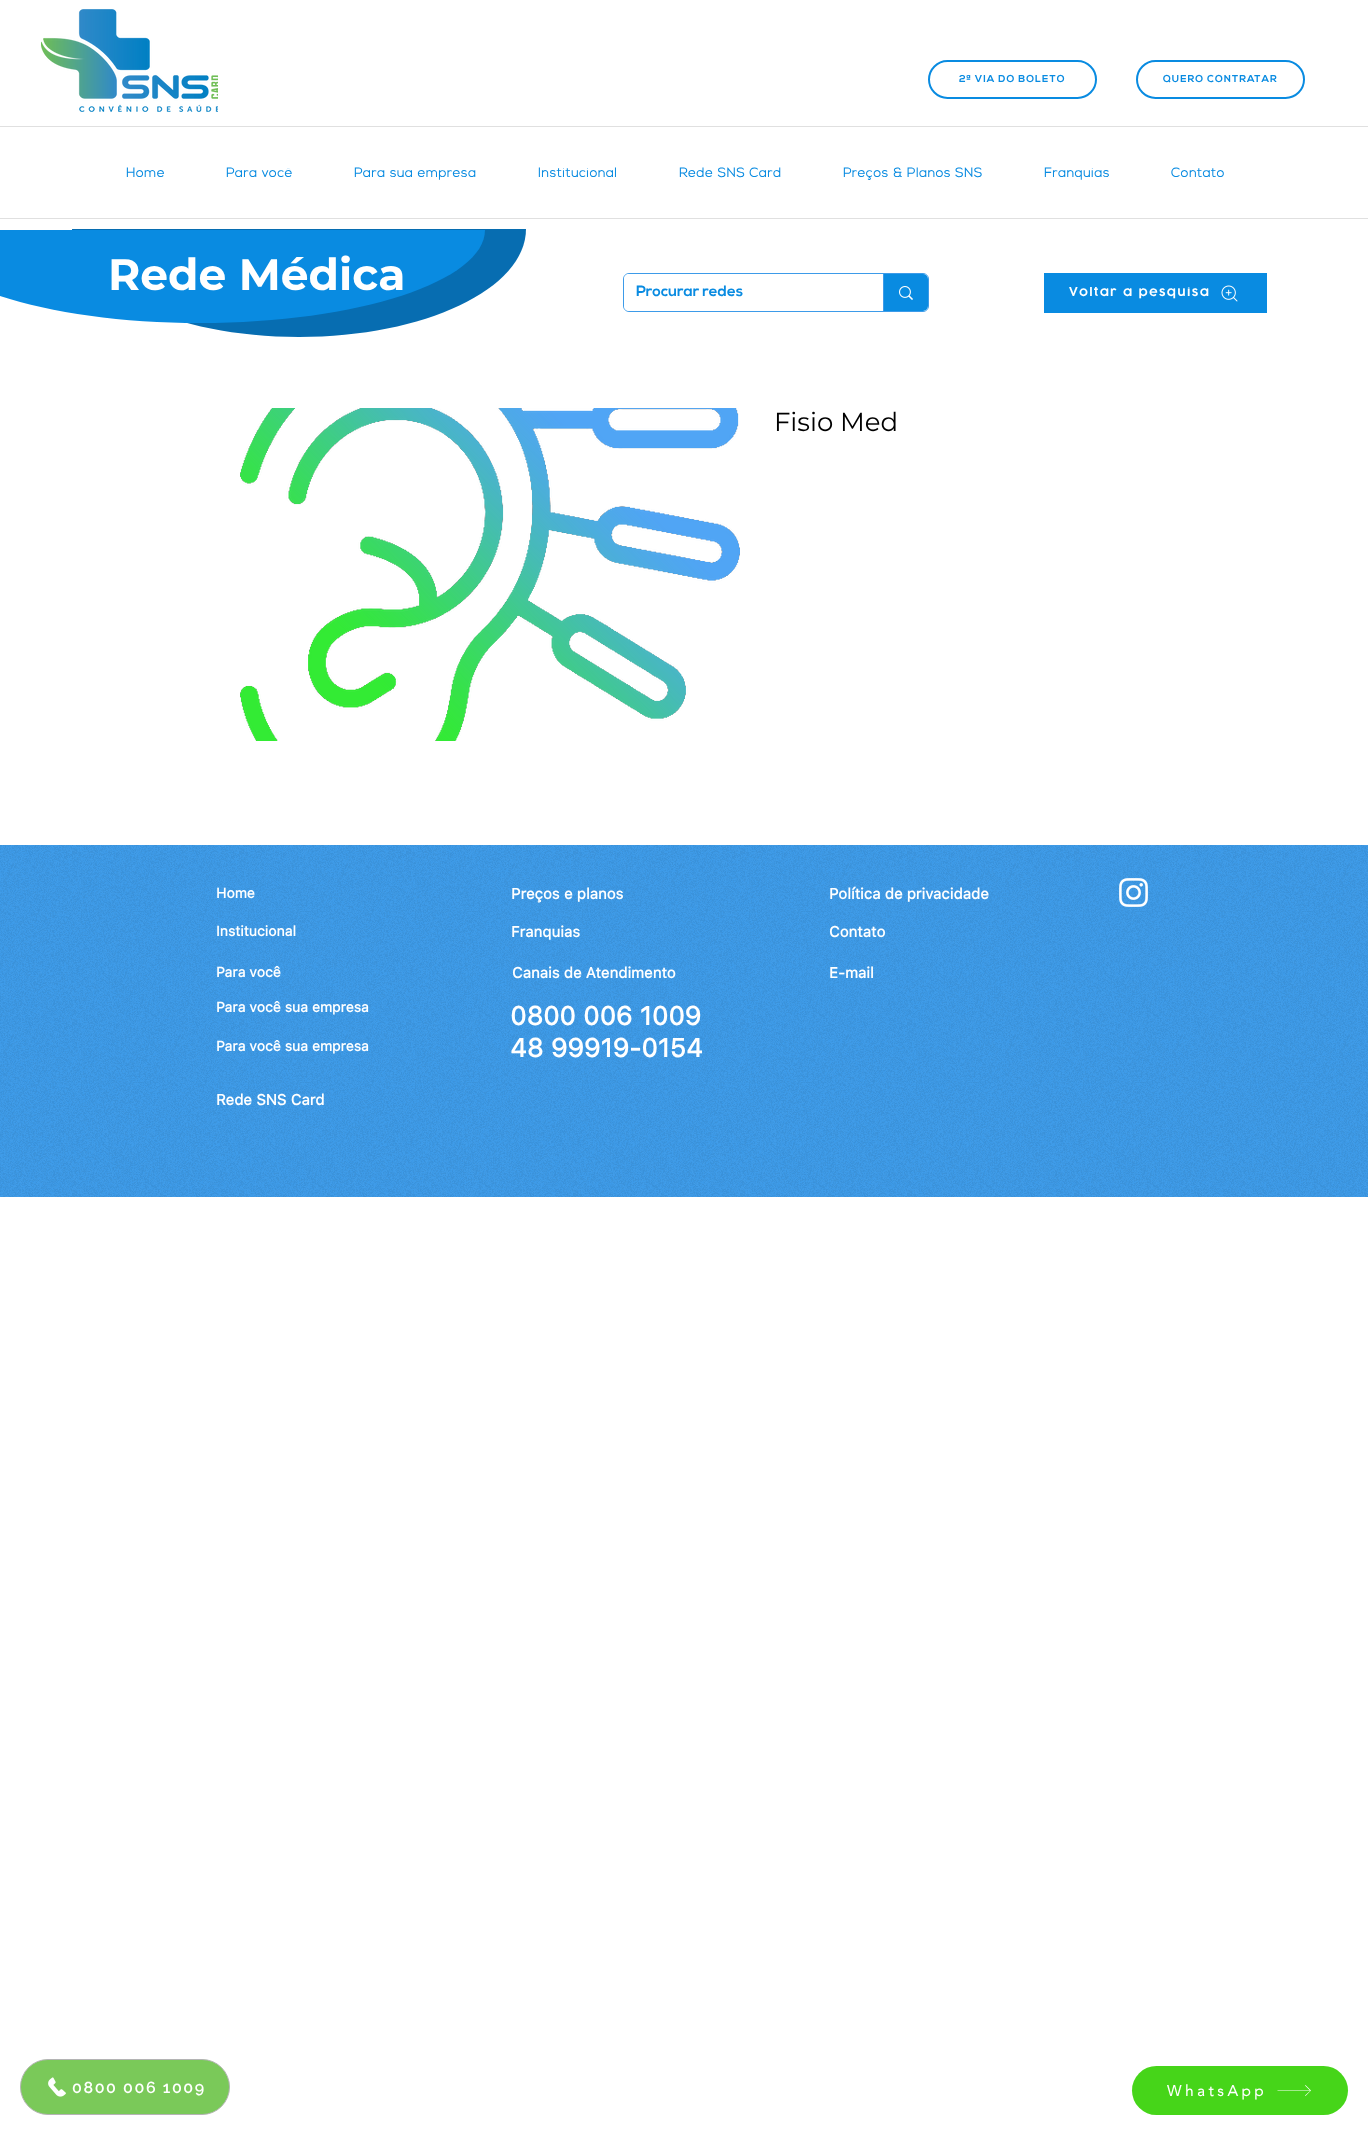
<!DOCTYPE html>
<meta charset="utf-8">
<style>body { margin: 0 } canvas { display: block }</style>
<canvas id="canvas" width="1368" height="2135"></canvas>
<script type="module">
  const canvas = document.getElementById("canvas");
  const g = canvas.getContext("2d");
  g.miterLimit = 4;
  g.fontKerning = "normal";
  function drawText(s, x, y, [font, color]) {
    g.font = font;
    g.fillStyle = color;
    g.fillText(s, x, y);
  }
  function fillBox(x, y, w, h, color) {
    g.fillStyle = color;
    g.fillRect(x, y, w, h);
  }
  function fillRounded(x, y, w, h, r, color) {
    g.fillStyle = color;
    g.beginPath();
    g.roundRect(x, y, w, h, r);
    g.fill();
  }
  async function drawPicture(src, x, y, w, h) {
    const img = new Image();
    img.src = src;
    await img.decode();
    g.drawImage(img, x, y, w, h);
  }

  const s1 = ["bold 10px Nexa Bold", "#098BE1"];
  const s2 = ["bold 13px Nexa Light", "#098BE1"];
  const s3 = ["bold 44px Montserrat", "#FFFFFF"];
  const s4 = ["bold 15px Nexa Bold", "#098BE1"];
  const s5 = ["600 12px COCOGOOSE", "#FFFFFF"];
  const s6 = ["26px Montserrat", "#000000"];
  const s7 = ["bold 14px SF Pro Text", "#FFFFFF"];
  const s8 = ["bold 15px SF Pro Text", "#FFFFFF"];
  const s9 = ["bold 26px SF Pro Text", "#FFFFFF"];
  const s10 = ["600 16px Raleway", "#FFFFFF"];
  const s11 = ["bold 15px 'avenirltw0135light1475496'", "#FFFFFF"];

  fillBox(0, 0, 1368, 2135, "#FFFFFF");
  await drawPicture("pic1.png", 41, 9, 177, 103);
  g.beginPath();
  g.roundRect(929, 61, 167, 37, 18.5);
  g.strokeStyle = "#098BE1";
  g.lineWidth = 2;
  g.stroke();
  g.letterSpacing = "1px";
  drawText("2ª VIA DO BOLETO", 959, 82, s1);
  g.beginPath();
  g.roundRect(1137, 61, 167, 37, 18.5);
  g.stroke();
  drawText("QUERO CONTRATAR", 1163, 82, s1);
  fillBox(0, 126, 1368, 1, "#E0E0E0");
  g.letterSpacing = "0.6px";
  drawText("Home", 126, 177, s2);
  drawText("Para você", 226, 177, s2);
  drawText("Para sua empresa", 354, 177, s2);
  drawText("Institucional", 538, 177, s2);
  drawText("Rede SNS Card", 679, 177, s2);
  drawText("Preços & Planos SNS", 843, 177, s2);
  drawText("Franquias", 1044, 177, s2);
  drawText("Contato", 1171, 177, s2);
  fillBox(0, 218, 1368, 1, "#E0E0E0");
  g.fillStyle = "#076DB1";
  g.beginPath();
  g.moveTo(299, 337);
  g.bezierCurveTo(424, 337, 526, 289, 526, 229);
  g.lineTo(72, 229);
  g.bezierCurveTo(72, 289, 174, 337, 299, 337);
  g.closePath();
  g.fill();
  g.fillStyle = "#098BE1";
  g.beginPath();
  g.moveTo(200, 323);
  g.bezierCurveTo(358, 323, 485, 281, 485, 230);
  g.lineTo(-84, 230);
  g.bezierCurveTo(-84, 281, 43, 323, 200, 323);
  g.closePath();
  g.fill();
  g.letterSpacing = "0px";
  drawText("Rede Médica", 108, 290, s3);
  g.beginPath();
  g.roundRect(623.5, 273.5, 305, 38, 5.5);
  g.strokeStyle = "#3D9BE9";
  g.lineWidth = 1;
  g.stroke();
  fillRounded(624, 274, 304, 37, 5, "#FFFFFF");
  drawText("Procurar redes", 636, 296, s4);
  g.beginPath();
  g.roundRect(883, 274, 45, 37, [0, 5, 5, 0]);
  g.fill();
  fillBox(883, 274, 1, 37, "#3D9BE9");
  await drawPicture("pic2.png", 899, 286, 14, 14);
  fillBox(1044, 273, 223, 40, "#098BE1");
  g.save();
  g.beginPath();
  g.rect(1069, 287, 140, 12);
  g.clip();
  g.letterSpacing = "1.25px";
  drawText("Voltar a pesquisa", 1069, 296, s5);
  g.restore();
  await drawPicture("pic3.png", 1221, 285, 17, 17);
  await drawPicture("pic4.png", 240, 408, 500, 333);
  drawText("Fisio Med", 774, 431, s6);
  fillBox(0, 845, 1368, 352, "#3D9BE9");
  await drawPicture("pic5.png", 0, 845, 1368, 352);
  drawText("Home", 216, 898, s7);
  drawText("Preços e planos", 511, 899, s8);
  drawText("Política de privacidade", 829, 899, s8);
  await drawPicture("pic6.png", 1119, 878, 29, 29);
  drawText("Institucional", 216, 936, s7);
  drawText("Franquias", 511, 937, s8);
  drawText("Contato", 829, 937, s8);
  drawText("Para você", 216, 977, s7);
  drawText("Canais de Atendimento", 512, 978, s8);
  drawText("E-mail", 829, 978, s8);
  drawText("Para você sua empresa", 216, 1012, s7);
  drawText("0800 006 1009", 510, 1025, s9);
  drawText("48 99919-0154", 510, 1057, s9);
  drawText("Para você sua empresa", 216, 1051, s7);
  drawText("Rede SNS Card", 216, 1105, s8);
  g.fillStyle = "#7AC959";
  g.beginPath();
  g.roundRect(20.5, 2059.5, 209, 55, 27.5);
  g.fill();
  g.strokeStyle = "#B4B4B4";
  g.stroke();
  await drawPicture("pic7.png", 48, 2077, 18, 20);
  g.letterSpacing = "1.6px";
  drawText("0800 006 1009", 72, 2093, s10);
  fillRounded(1132, 2066, 216, 49, 24.5, "#46D519");
  g.letterSpacing = "3.75px";
  drawText("WhatsApp", 1167, 2096, s11);
  g.beginPath();
  g.moveTo(1305.5, 2085);
  g.lineTo(1305, 2085.5);
  g.lineTo(1310, 2090.5);
  g.lineTo(1277.5, 2090.5);
  g.lineTo(1277.5, 2091);
  g.lineTo(1310, 2091);
  g.lineTo(1305, 2095.5);
  g.lineTo(1305.5, 2096);
  g.lineTo(1311, 2090.5);
  g.closePath();
  g.fill();
</script>
